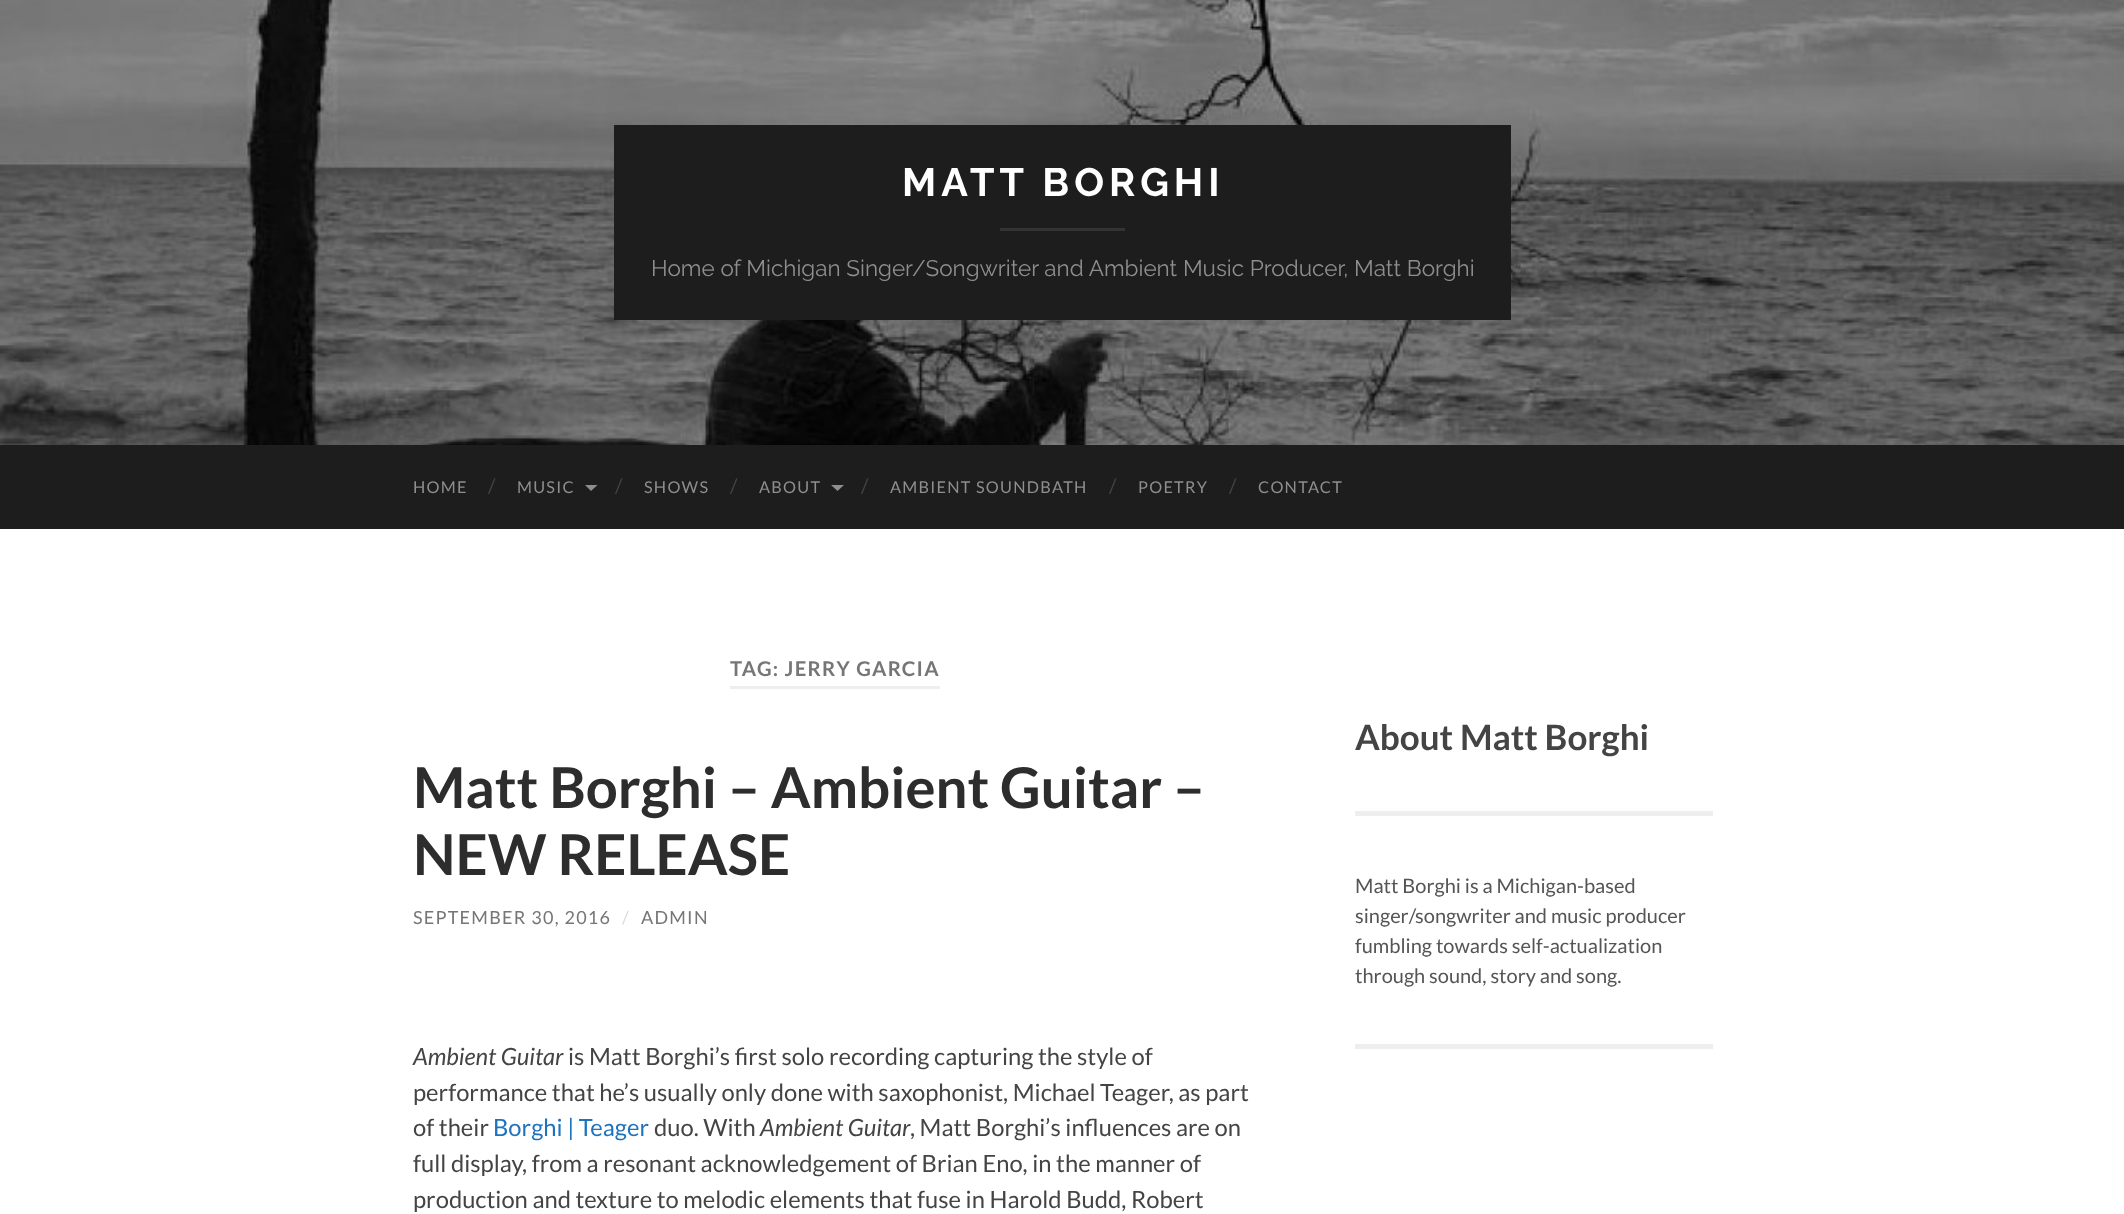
<!DOCTYPE html>
<meta charset="utf-8">
<style>body { margin: 0 } canvas { display: block }</style>
<canvas id="canvas" width="2124" height="1214"></canvas>
<script type="module">
  const canvas = document.getElementById("canvas");
  const g = canvas.getContext("2d");
  g.miterLimit = 4;
  g.fontKerning = "normal";
  function drawText(s, x, y, [font, color]) {
    g.font = font;
    g.fillStyle = color;
    g.fillText(s, x, y);
  }
  function fillBox(x, y, w, h, color) {
    g.fillStyle = color;
    g.fillRect(x, y, w, h);
  }
  async function drawPicture(src, x, y, w, h) {
    const img = new Image();
    img.src = src;
    await img.decode();
    g.drawImage(img, x, y, w, h);
  }

  const s1 = ["100 39.5px Raleway", "#FFFFFF"];
  const s2 = ["100 22.5px 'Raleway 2'", "#8E8E8E"];
  const s3 = ["16.25px Lato", "#8E8E8E"];
  const s4 = ["20px Lato", "#444444"];
  const s5 = ["bold 20.25px Lato", "#767676"];
  const s6 = ["bold 56.25px Lato", "#2D2D2D"];
  const s7 = ["18px Lato", "#767676"];
  const s8 = ["18px Lato", "#DDDDDD"];
  const s9 = ["italic 23.75px Lato", "#444444"];
  const s10 = ["23.75px Lato", "#444444"];
  const s11 = ["23.75px Lato", "#1E73BE"];
  const s12 = ["bold 35px Lato", "#444444"];
  const s13 = ["20px Lato", "#555555"];

  fillBox(0, 0, 2124, 1214, "#FFFFFF");
  await drawPicture("pic1.png", 0, 0, 2124, 445);
  fillBox(614, 125, 897, 195, "#1D1D1D");
  g.letterSpacing = "5px";
  drawText("MATT BORGHI", 902, 196, s1);
  fillBox(1000, 228, 125, 3, "#343434");
  g.letterSpacing = "0px";
  drawText("Home of Michigan Singer/Songwriter and Ambient Music Producer, Matt Borghi", 651, 276, s2);
  fillBox(0, 445, 2124, 84, "#1D1D1D");
  g.letterSpacing = "1.25px";
  drawText("HOME", 413, 493, s3);
  g.letterSpacing = "0px";
  drawText("/", 488, 493, s4);
  g.letterSpacing = "1.25px";
  drawText("MUSIC", 517, 493, s3);
  g.beginPath();
  g.moveTo(585, 485);
  g.lineTo(597.5, 485);
  g.lineTo(591, 491);
  g.closePath();
  g.fill();
  g.letterSpacing = "0px";
  drawText("/", 615, 493, s4);
  g.letterSpacing = "1.25px";
  drawText("SHOWS", 644, 493, s3);
  g.letterSpacing = "0px";
  drawText("/", 730, 493, s4);
  g.letterSpacing = "1.25px";
  drawText("ABOUT", 759, 493, s3);
  g.beginPath();
  g.moveTo(831, 485);
  g.lineTo(844, 485);
  g.lineTo(837.5, 491);
  g.closePath();
  g.fill();
  g.letterSpacing = "0px";
  drawText("/", 861, 493, s4);
  g.letterSpacing = "1.25px";
  drawText("AMBIENT SOUNDBATH", 890, 493, s3);
  g.letterSpacing = "0px";
  drawText("/", 1109, 493, s4);
  g.letterSpacing = "1.25px";
  drawText("POETRY", 1138, 493, s3);
  g.letterSpacing = "0px";
  drawText("/", 1229, 493, s4);
  g.letterSpacing = "1.25px";
  drawText("CONTACT", 1258, 493, s3);
  fillBox(730, 686, 210, 3, "#EEEEEE");
  drawText("TAG: JERRY GARCIA", 730, 676, s5);
  g.letterSpacing = "0px";
  drawText("Matt Borghi – Ambient Guitar –", 413, 808, s6);
  drawText("NEW RELEASE", 413, 875, s6);
  g.letterSpacing = "1.25px";
  drawText("SEPTEMBER 30, 2016", 413, 924, s7);
  drawText("/", 622, 924, s8);
  drawText("ADMIN", 641, 924, s7);
  g.letterSpacing = "0px";
  drawText("Ambient Guitar", 413, 1065, s9);
  drawText("is Matt Borghi’s first solo recording capturing the style of", 568, 1065, s10);
  drawText("performance that he’s usually only done with saxophonist, Michael Teager, as part", 413, 1101, s10);
  drawText("of their", 413, 1136, s10);
  drawText("Borghi | Teager", 493, 1136, s11);
  drawText("duo. With", 654, 1136, s10);
  drawText("Ambient Guitar", 760, 1136, s9);
  drawText(", Matt Borghi’s influences are on", 910, 1136, s10);
  drawText("full display, from a resonant acknowledgement of Brian Eno, in the manner of", 413, 1172, s10);
  drawText("production and texture to melodic elements that fuse in Harold Budd, Robert", 413, 1208, s10);
  fillBox(1355, 811, 358, 5, "#EEEEEE");
  drawText("About Matt Borghi", 1355, 750, s12);
  fillBox(1355, 1044, 358, 5, "#EEEEEE");
  drawText("Matt Borghi is a Michigan-based", 1355, 893, s13);
  drawText("singer/songwriter and music producer", 1355, 923, s13);
  drawText("fumbling towards self-actualization", 1355, 953, s13);
  drawText("through sound, story and song.", 1355, 983, s13);
</script>
